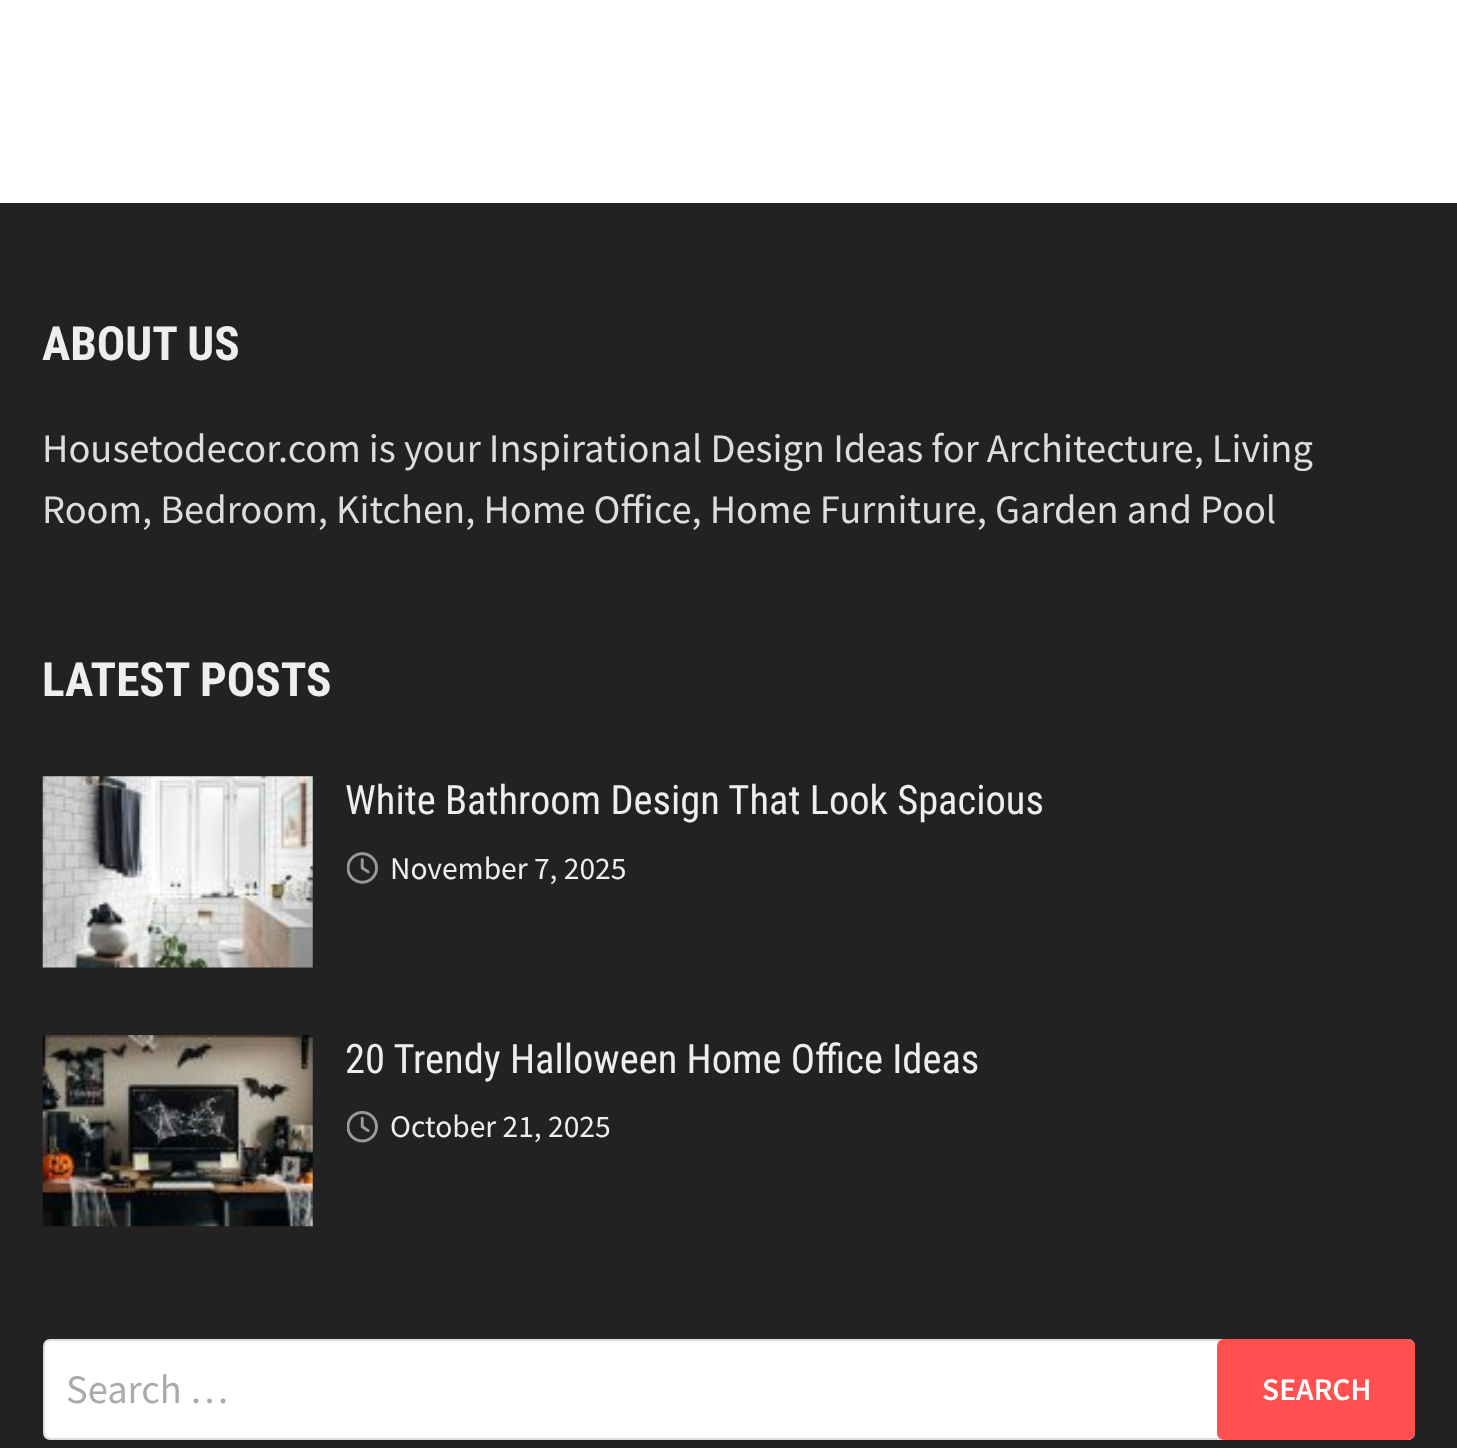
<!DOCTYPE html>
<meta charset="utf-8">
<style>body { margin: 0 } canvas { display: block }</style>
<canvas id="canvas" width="1457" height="1448"></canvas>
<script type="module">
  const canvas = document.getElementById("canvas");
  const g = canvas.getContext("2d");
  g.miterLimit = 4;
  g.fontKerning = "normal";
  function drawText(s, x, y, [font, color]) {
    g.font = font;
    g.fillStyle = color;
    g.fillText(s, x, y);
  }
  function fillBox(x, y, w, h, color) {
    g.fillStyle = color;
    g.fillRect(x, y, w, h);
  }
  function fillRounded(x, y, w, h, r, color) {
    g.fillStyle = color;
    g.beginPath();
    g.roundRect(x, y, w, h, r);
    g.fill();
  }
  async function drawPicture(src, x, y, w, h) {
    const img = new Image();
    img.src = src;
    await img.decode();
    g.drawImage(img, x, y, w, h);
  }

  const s1 = ["bold 47.25px Roboto Condensed", "#EEEEEE"];
  const s2 = ["40.5px Source Sans Pro", "#DDDDDD"];
  const s3 = ["40.5px Roboto Condensed", "#EEEEEE"];
  const s4 = ["31.5px Source Sans Pro", "#EEEEEE"];
  const s5 = ["40.5px Source Sans Pro", "#AAAAAA"];
  const s6 = ["600 31.5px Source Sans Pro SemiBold", "#FFFFFF"];

  fillBox(0, 0, 1457, 1448, "#FFFFFF");
  fillBox(0, 203, 1457, 1245, "#222222");
  drawText("ABOUT US", 42, 360, s1);
  drawText("Housetodecor.com is your Inspirational Design Ideas for Architecture, Living", 42, 462, s2);
  drawText("Room, Bedroom, Kitchen, Home Office, Home Furniture, Garden and Pool", 42, 523, s2);
  drawText("LATEST POSTS", 42, 696, s1);
  await drawPicture("pic1.png", 42, 776, 271, 192);
  drawText("White Bathroom Design That Look Spacious", 345, 814, s3);
  await drawPicture("pic2.png", 347, 852, 31, 32);
  drawText("November 7, 2025", 390, 879, s4);
  await drawPicture("pic3.png", 42, 1035, 271, 192);
  drawText("20 Trendy Halloween Home Office Ideas", 345, 1073, s3);
  await drawPicture("pic4.png", 347, 1110, 31, 33);
  drawText("October 21, 2025", 390, 1137, s4);
  g.fillStyle = "#FFFFFF";
  g.beginPath();
  g.roundRect(44, 1340, 1370, 99, 6);
  g.fill();
  g.strokeStyle = "#DDDDDD";
  g.lineWidth = 2;
  g.stroke();
  drawText("Search …", 66, 1403, s5);
  fillRounded(1217, 1339, 198, 101, 7, "#FF4F4F");
  drawText("SEARCH", 1262, 1400, s6);
</script>
